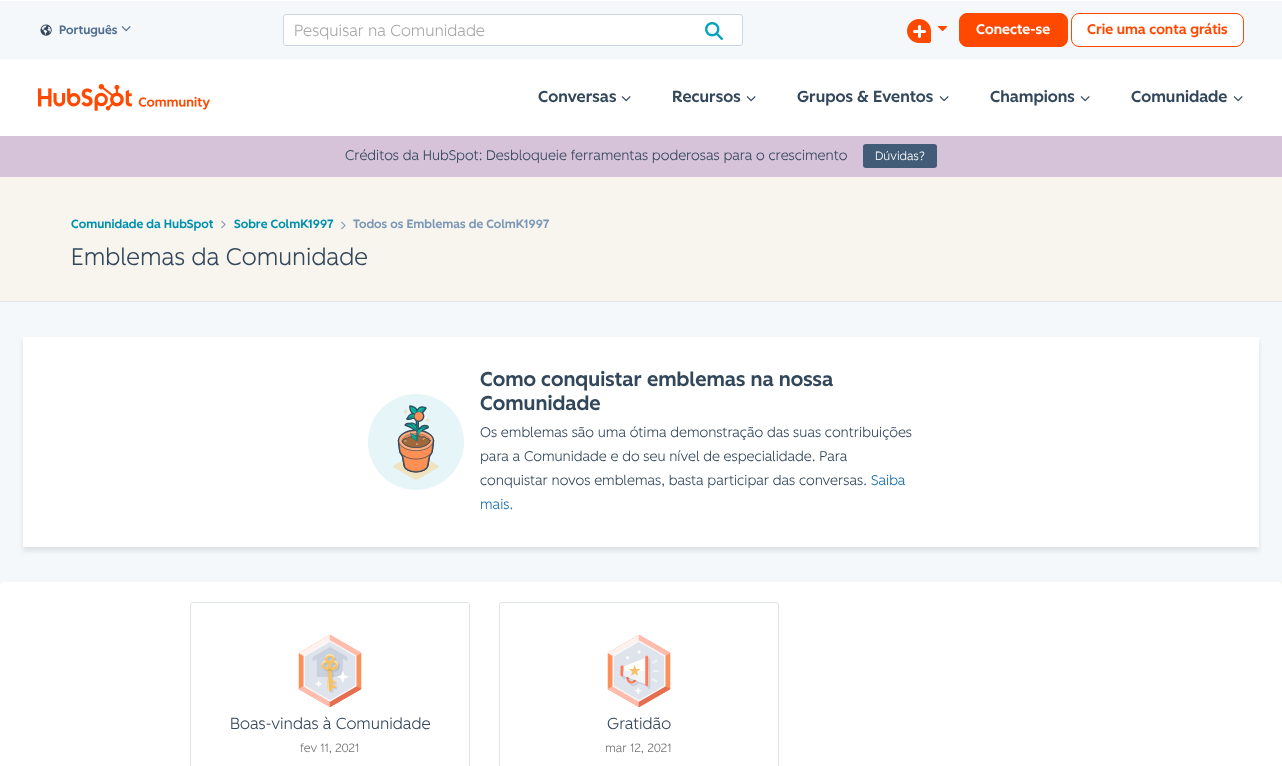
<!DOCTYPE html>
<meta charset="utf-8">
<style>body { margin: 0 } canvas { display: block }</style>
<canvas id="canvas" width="1282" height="766"></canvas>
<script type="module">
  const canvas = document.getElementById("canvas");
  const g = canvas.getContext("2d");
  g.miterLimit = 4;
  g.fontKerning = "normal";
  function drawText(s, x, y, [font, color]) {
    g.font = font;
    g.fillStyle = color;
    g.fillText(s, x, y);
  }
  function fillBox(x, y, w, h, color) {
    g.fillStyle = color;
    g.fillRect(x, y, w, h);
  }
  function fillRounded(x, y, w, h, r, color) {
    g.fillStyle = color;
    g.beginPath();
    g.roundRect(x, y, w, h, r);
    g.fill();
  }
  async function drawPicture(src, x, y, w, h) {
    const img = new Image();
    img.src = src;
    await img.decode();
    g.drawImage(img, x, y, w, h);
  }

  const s1 = ["500 12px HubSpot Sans", "#516F90"];
  const s2 = ["300 16px HubSpot Sans", "#A9A9A9"];
  const s3 = ["500 14px HubSpot Sans", "#FFFFFF"];
  const s4 = ["500 14px HubSpot Sans", "#FF4800"];
  const s5 = ["500 16px HubSpot Sans", "#33475B"];
  const s6 = ["300 14px HubSpot Sans", "#33475B"];
  const s7 = ["300 12px HubSpot Sans", "#FFFFFF"];
  const s8 = ["500 12px HubSpot Sans", "#0091AE"];
  const s9 = ["500 12px HubSpot Sans", "#7C98B6"];
  const s10 = ["300 24px HubSpot Sans", "#33475B"];
  const s11 = ["500 20px HubSpot Sans", "#33475B"];
  const s12 = ["300 14px HubSpot Sans", "#146CAC"];
  const s13 = ["300 16px HubSpot Sans", "#33475B"];
  const s14 = ["300 12px HubSpot Sans", "#747474"];

  fillBox(0, 0, 1282, 766, "#F8F5EE");
  fillBox(0, 0, 1282, 1, "#FFFFFF");
  fillBox(0, 1, 1282, 58, "#F5F8FA");
  await drawPicture("pic1.png", 40, 24, 12, 12);
  drawText("Português", 59, 34, s1);
  await drawPicture("pic2.png", 121, 26, 10, 6);
  g.fillStyle = "#FFFFFF";
  g.beginPath();
  g.roundRect(283.5, 14.5, 459, 31, 2.5);
  g.fill();
  g.strokeStyle = "#CBD6E2";
  g.stroke();
  drawText("Pesquisar na Comunidade", 294, 36, s2);
  await drawPicture("pic3.png", 705, 22, 18, 18);
  await drawPicture("pic4.png", 907, 19, 24, 24);
  await drawPicture("pic5.png", 938, 26, 10, 6);
  g.fillStyle = "#FF4800";
  g.beginPath();
  g.roundRect(959.5, 13.5, 108, 33, 7.5);
  g.fill();
  g.strokeStyle = "#FF4800";
  g.stroke();
  drawText("Conecte-se", 976, 34, s3);
  g.beginPath();
  g.roundRect(1071.5, 13.5, 172, 33, 7.5);
  g.fill();
  g.stroke();
  drawText("Crie uma conta grátis", 1087, 34, s4);
  fillBox(0, 59, 1282, 77, "#FFFFFF");
  await drawPicture("pic6.png", 38, 84, 172, 27);
  drawText("Conversas", 538, 102, s5);
  await drawPicture("pic7.png", 621, 96, 10, 6);
  drawText("Recursos", 672, 102, s5);
  await drawPicture("pic7.png", 746, 96, 10, 6);
  drawText("Grupos & Eventos", 797, 102, s5);
  await drawPicture("pic7.png", 939, 96, 10, 6);
  drawText("Champions", 990, 102, s5);
  await drawPicture("pic7.png", 1080, 96, 10, 6);
  drawText("Comunidade", 1131, 102, s5);
  await drawPicture("pic7.png", 1233, 96, 10, 6);
  fillBox(0, 136, 1282, 41, "#D6C2D9");
  drawText("Créditos da HubSpot: Desbloqueie ferramentas poderosas para o crescimento", 345, 160, s6);
  fillRounded(863, 144, 74, 24, 3, "#425B76");
  drawText("Dúvidas?", 875, 160, s7);
  drawText("Comunidade da HubSpot", 71, 228, s8);
  await drawPicture("pic8.png", 221, 220, 5, 9);
  drawText("Sobre ColmK1997", 234, 228, s8);
  await drawPicture("pic8.png", 341, 221, 5, 9);
  drawText("Todos os Emblemas de ColmK1997", 353, 228, s9);
  fillBox(0, 301, 1282, 1, "#DFE3EB");
  drawText("Emblemas da Comunidade", 71, 265, s10);
  fillBox(0, 302, 1282, 280, "#F5F8FA");
  g.fillStyle = "rgba(45, 62, 80, 0.12)";
  g.filter = "blur(2.5px)";
  g.beginPath();
  g.rect(23, 341, 1236, 210);
  g.fill();
  g.filter = "none";
  fillBox(23, 337, 1236, 210, "#FFFFFF");
  g.fillStyle = "#E5F5F8";
  g.beginPath();
  g.arc(416, 442, 48, 0, Math.PI * 2);
  g.fill();
  await drawPicture("pic9.png", 393, 405, 46, 75);
  drawText("Como conquistar emblemas na nossa", 480, 386, s11);
  drawText("Comunidade", 480, 410, s11);
  drawText("Os emblemas são uma ótima demonstração das suas contribuições", 480, 437, s6);
  drawText("para a Comunidade e do seu nível de especialidade. Para", 480, 461, s6);
  drawText("conquistar novos emblemas, basta participar das conversas.", 480, 485, s6);
  drawText("Saiba", 871, 485, s12);
  drawText("mais.", 480, 509, s12);
  fillRounded(0, 582, 1282, 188, 4, "#FFFFFF");
  g.beginPath();
  g.roundRect(190.5, 602.5, 279, 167, 2.5);
  g.strokeStyle = "#DFE3EB";
  g.stroke();
  await drawPicture("pic10.png", 298, 635, 64, 72);
  drawText("Boas-vindas à Comunidade", 230, 729, s13);
  drawText("fev 11, 2021", 300, 752, s14);
  g.beginPath();
  g.roundRect(499.5, 602.5, 279, 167, 2.5);
  g.stroke();
  await drawPicture("pic11.png", 607, 635, 64, 72);
  drawText("Gratidão", 607, 729, s13);
  drawText("mar 12, 2021", 605, 752, s14);
</script>
